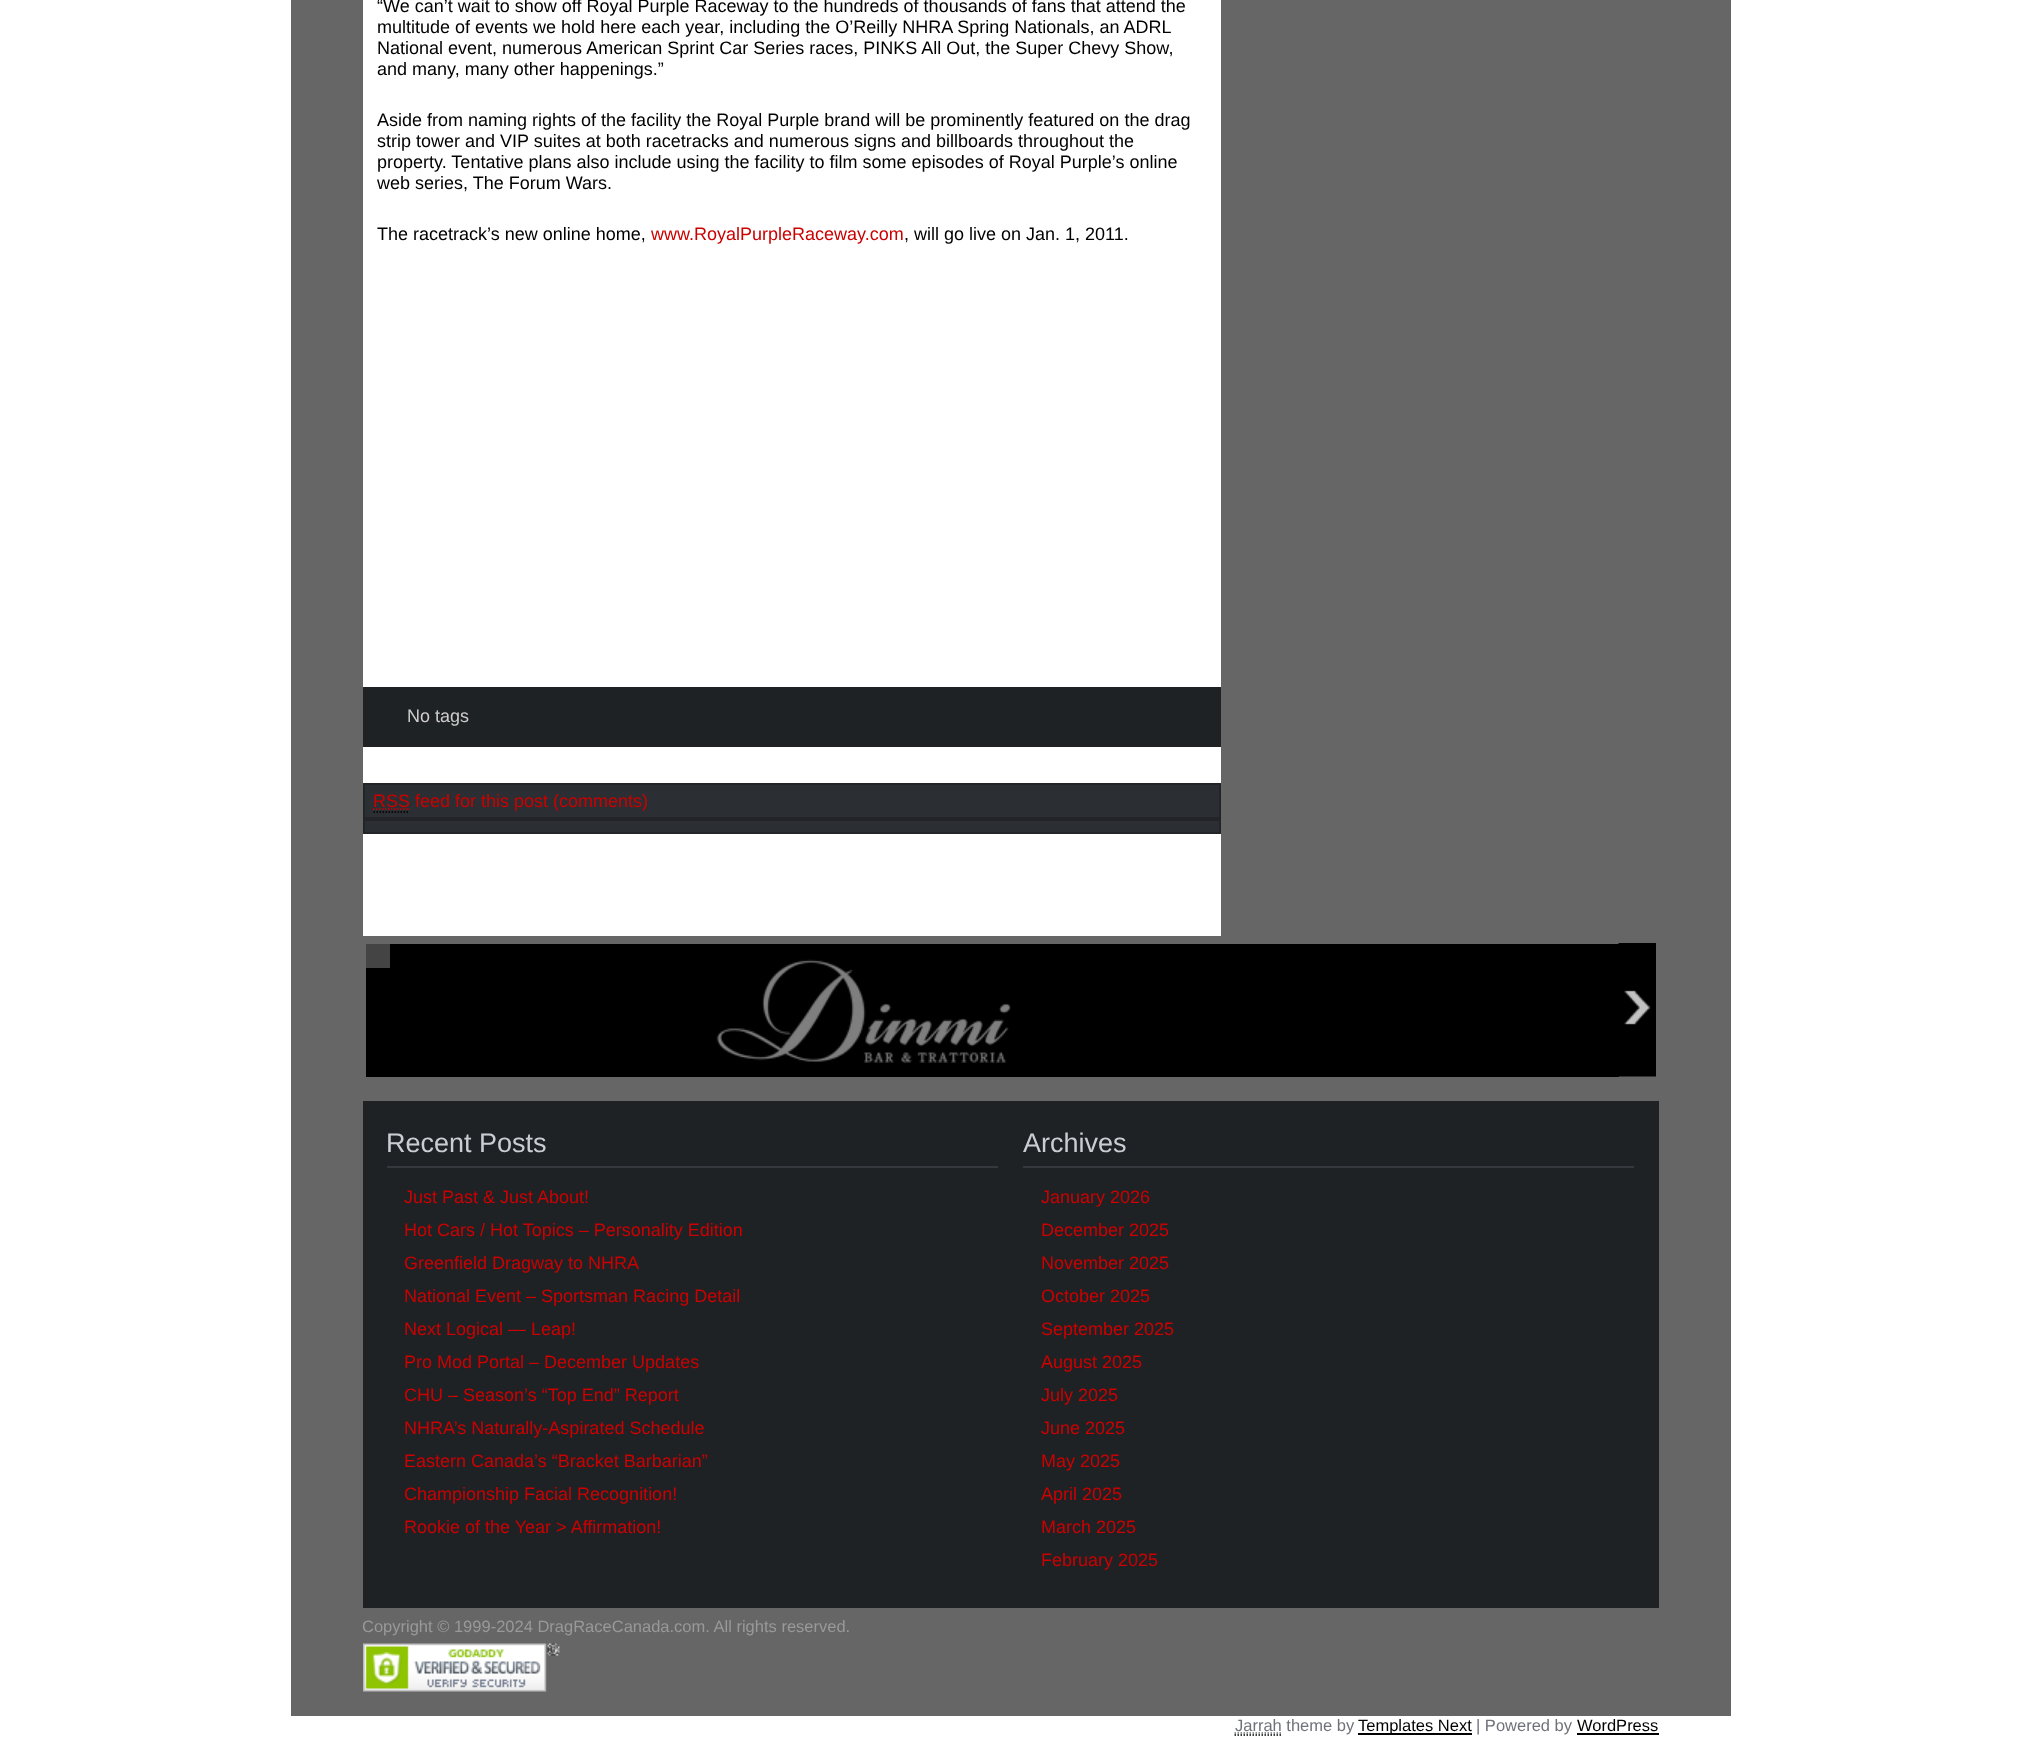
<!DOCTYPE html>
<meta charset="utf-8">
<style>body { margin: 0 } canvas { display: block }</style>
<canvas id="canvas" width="2020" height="1751"></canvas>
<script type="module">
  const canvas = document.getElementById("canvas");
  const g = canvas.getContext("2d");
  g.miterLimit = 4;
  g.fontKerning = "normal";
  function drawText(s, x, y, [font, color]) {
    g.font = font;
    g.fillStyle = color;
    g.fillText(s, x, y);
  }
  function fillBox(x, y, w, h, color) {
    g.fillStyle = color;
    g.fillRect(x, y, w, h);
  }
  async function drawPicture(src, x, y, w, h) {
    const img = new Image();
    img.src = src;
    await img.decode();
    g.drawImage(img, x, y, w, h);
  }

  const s1 = ["18px Liberation Sans", "#000000"];
  const s2 = ["18px Liberation Sans", "#CC0000"];
  const s3 = ["18px Liberation Sans", "#CCCCCC"];
  const s4 = ["27px Liberation Sans", "#CACED3"];
  const s5 = ["16.5px Liberation Sans", "#999999"];
  const s6 = ["16.5px Liberation Sans", "#707279"];
  const s7 = ["16.5px Liberation Sans", "#000000"];

  fillBox(0, 0, 2020, 1751, "#FFFFFF");
  fillBox(291, 0, 1440, 1716, "#666666");
  fillBox(363, 0, 858, 936, "#FFFFFF");
  drawText("“We can’t wait to show off Royal Purple Raceway to the hundreds of thousands of fans that attend the", 377, 12, s1);
  drawText("multitude of events we hold here each year, including the O’Reilly NHRA Spring Nationals, an ADRL", 377, 33, s1);
  drawText("National event, numerous American Sprint Car Series races, PINKS All Out, the Super Chevy Show,", 377, 54, s1);
  drawText("and many, many other happenings.”", 377, 75, s1);
  drawText("Aside from naming rights of the facility the Royal Purple brand will be prominently featured on the drag", 377, 126, s1);
  drawText("strip tower and VIP suites at both racetracks and numerous signs and billboards throughout the", 377, 147, s1);
  drawText("property. Tentative plans also include using the facility to film some episodes of Royal Purple’s online", 377, 168, s1);
  drawText("web series, The Forum Wars.", 377, 189, s1);
  drawText("The racetrack’s new online home,", 377, 240, s1);
  drawText("www.RoyalPurpleRaceway.com", 651, 240, s2);
  drawText(", will go live on Jan. 1, 2011.", 904, 240, s1);
  fillBox(363, 687, 858, 60, "#1F2225");
  drawText("No tags", 407, 722, s3);
  g.fillStyle = "#2B2E32";
  g.beginPath();
  g.rect(364, 784, 856, 34);
  g.fill();
  g.strokeStyle = "#222428";
  g.lineWidth = 2;
  g.stroke();
  g.beginPath();
  g.moveTo(373, 809);
  g.lineTo(410, 809);
  g.strokeStyle = "#CC0000";
  g.lineWidth = 1.5;
  g.setLineDash([1.5, 1.5]);
  g.stroke();
  drawText("RSS feed for this post (comments)", 373, 807, s2);
  g.beginPath();
  g.moveTo(373.5, 812);
  g.lineTo(409.5, 812);
  g.strokeStyle = "#000000";
  g.stroke();
  g.fillStyle = "#2B2E32";
  g.beginPath();
  g.rect(364, 820, 856, 13);
  g.fill();
  g.strokeStyle = "#222428";
  g.lineWidth = 2;
  g.setLineDash([]);
  g.stroke();
  fillBox(366, 944, 1253, 133, "#000000");
  fillBox(366, 944, 24, 24, "#444444");
  fillBox(1619, 1076, 37, 1, "#444444");
  await drawPicture("pic1.png", 1618, 943, 38, 134);
  await drawPicture("pic2.png", 716, 959, 295, 104);
  fillBox(363, 1101, 1296, 507, "#1F2225");
  fillBox(387, 1166, 611, 2, "#35383D");
  drawText("Recent Posts", 386, 1152, s4);
  drawText("Just Past & Just About!", 404, 1203, s2);
  drawText("Hot Cars / Hot Topics – Personality Edition", 404, 1236, s2);
  drawText("Greenfield Dragway to NHRA", 404, 1269, s2);
  drawText("National Event – Sportsman Racing Detail", 404, 1302, s2);
  drawText("Next Logical — Leap!", 404, 1335, s2);
  drawText("Pro Mod Portal – December Updates", 404, 1368, s2);
  drawText("CHU – Season’s “Top End” Report", 404, 1401, s2);
  drawText("NHRA’s Naturally-Aspirated Schedule", 404, 1434, s2);
  drawText("Eastern Canada’s “Bracket Barbarian”", 404, 1467, s2);
  drawText("Championship Facial Recognition!", 404, 1500, s2);
  drawText("Rookie of the Year > Affirmation!", 404, 1533, s2);
  fillBox(1023, 1166, 611, 2, "#35383D");
  drawText("Archives", 1023, 1152, s4);
  drawText("January 2026", 1041, 1203, s2);
  drawText("December 2025", 1041, 1236, s2);
  drawText("November 2025", 1041, 1269, s2);
  drawText("October 2025", 1041, 1302, s2);
  drawText("September 2025", 1041, 1335, s2);
  drawText("August 2025", 1041, 1368, s2);
  drawText("July 2025", 1041, 1401, s2);
  drawText("June 2025", 1041, 1434, s2);
  drawText("May 2025", 1041, 1467, s2);
  drawText("April 2025", 1041, 1500, s2);
  drawText("March 2025", 1041, 1533, s2);
  drawText("February 2025", 1041, 1566, s2);
  drawText("Copyright © 1999-2024 DragRaceCanada.com. All rights reserved.", 362, 1632, s5);
  await drawPicture("pic3.png", 363, 1643, 197, 49);
  g.beginPath();
  g.moveTo(1234.5, 1735);
  g.lineTo(1281, 1735);
  g.strokeStyle = "#000000";
  g.lineWidth = 1.5;
  g.setLineDash([1.5, 1.5]);
  g.stroke();
  g.beginPath();
  g.moveTo(1234.5, 1733);
  g.lineTo(1281.5, 1733);
  g.strokeStyle = "#707279";
  g.stroke();
  drawText("Jarrah theme by", 1235, 1731, s6);
  fillBox(1358, 1733, 114, 2, "#000000");
  drawText("Templates Next", 1358, 1731, s7);
  drawText("| Powered by", 1476, 1731, s6);
  drawText("WordPress", 1577, 1731, s7);
  fillBox(1577, 1733, 82, 2, "#000000");
</script>
